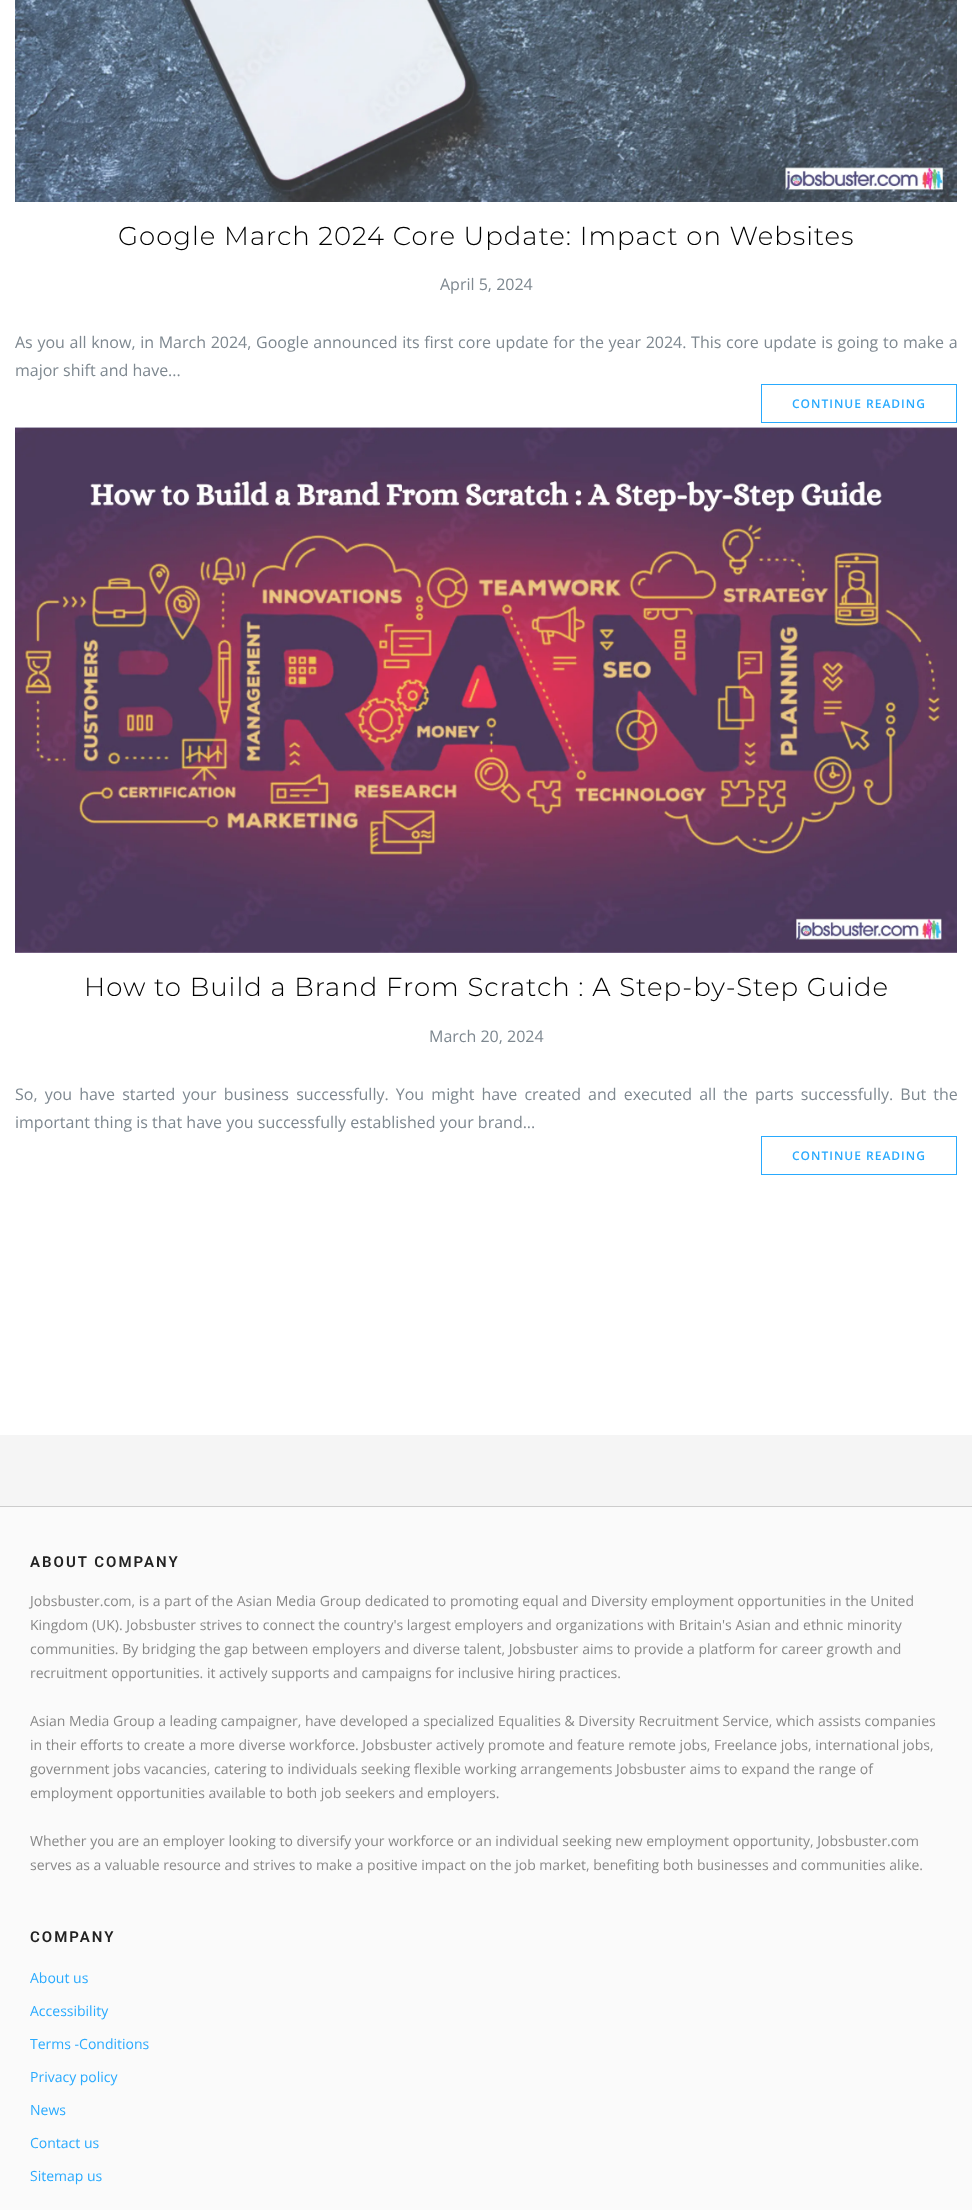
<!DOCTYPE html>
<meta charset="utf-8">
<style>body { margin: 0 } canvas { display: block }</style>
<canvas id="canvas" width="972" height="2210"></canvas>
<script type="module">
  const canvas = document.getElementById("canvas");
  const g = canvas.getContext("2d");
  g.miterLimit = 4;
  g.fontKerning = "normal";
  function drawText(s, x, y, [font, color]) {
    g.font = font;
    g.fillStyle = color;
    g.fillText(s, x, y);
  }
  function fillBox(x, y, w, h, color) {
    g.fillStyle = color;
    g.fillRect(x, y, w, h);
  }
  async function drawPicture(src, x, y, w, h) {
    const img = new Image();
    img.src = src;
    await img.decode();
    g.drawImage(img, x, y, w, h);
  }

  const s1 = ["300 26px Montserrat", "#000000"];
  const s2 = ["16px Open Sans", "#7E8890"];
  const s3 = ["600 12px Open Sans", "#29AAFE"];
  const s4 = ["600 15px Roboto", "#222222"];
  const s5 = ["14px Open Sans", "#888888"];
  const s6 = ["14px Open Sans", "#29AAFE"];

  fillBox(0, 0, 972, 2210, "#F5F5F5");
  fillBox(0, 0, 972, 1435, "#FFFFFF");
  await drawPicture("pic1.png", 15, 0, 942, 202);
  g.letterSpacing = "1px";
  drawText("Google March 2024 Core Update: Impact on Websites", 118, 245, s1);
  g.letterSpacing = "0px";
  drawText("April 5, 2024", 440, 290, s2);
  g.wordSpacing = "0.5px";
  drawText("As you all know, in March 2024, Google announced its first core update for the year 2024. This core update is going to make a", 15, 348, s2);
  g.wordSpacing = "0px";
  drawText("major shift and have...", 15, 376, s2);
  g.strokeStyle = "#29AAFE";
  g.strokeRect(761.5, 384.5, 195, 38);
  g.letterSpacing = "1px";
  drawText("CONTINUE READING", 792, 408, s3);
  await drawPicture("pic2.png", 15, 427, 942, 526);
  drawText("How to Build a Brand From Scratch : A Step-by-Step Guide", 84, 996, s1);
  g.letterSpacing = "0px";
  drawText("March 20, 2024", 429, 1042, s2);
  g.wordSpacing = "3px";
  drawText("So, you have started your business successfully. You might have created and executed all the parts successfully. But the", 15, 1100, s2);
  g.wordSpacing = "0px";
  drawText("important thing is that have you successfully established your brand...", 15, 1128, s2);
  g.strokeRect(761.5, 1136.5, 195, 38);
  g.letterSpacing = "1px";
  drawText("CONTINUE READING", 792, 1160, s3);
  fillBox(0, 1507, 972, 703, "#FAFAFA");
  fillBox(0, 1506, 972, 1, "#CCCCCC");
  g.letterSpacing = "2px";
  drawText("ABOUT COMPANY", 30, 1567, s4);
  g.letterSpacing = "0px";
  drawText("Jobsbuster.com, is a part of the Asian Media Group dedicated to promoting equal and Diversity employment opportunities in the United", 30, 1606, s5);
  drawText("Kingdom (UK). Jobsbuster strives to connect the country's largest employers and organizations with Britain's Asian and ethnic minority", 30, 1630, s5);
  drawText("communities. By bridging the gap between employers and diverse talent, Jobsbuster aims to provide a platform for career growth and", 30, 1654, s5);
  drawText("recruitment opportunities. it actively supports and campaigns for inclusive hiring practices.", 30, 1678, s5);
  drawText("Asian Media Group a leading campaigner, have developed a specialized Equalities & Diversity Recruitment Service, which assists companies", 30, 1726, s5);
  drawText("in their efforts to create a more diverse workforce. Jobsbuster actively promote and feature remote jobs, Freelance jobs, international jobs,", 30, 1750, s5);
  drawText("government jobs vacancies, catering to individuals seeking flexible working arrangements Jobsbuster aims to expand the range of", 30, 1774, s5);
  drawText("employment opportunities available to both job seekers and employers.", 30, 1798, s5);
  drawText("Whether you are an employer looking to diversify your workforce or an individual seeking new employment opportunity, Jobsbuster.com", 30, 1846, s5);
  drawText("serves as a valuable resource and strives to make a positive impact on the job market, benefiting both businesses and communities alike.", 30, 1870, s5);
  g.letterSpacing = "2px";
  drawText("COMPANY", 30, 1942, s4);
  g.letterSpacing = "0px";
  drawText("About us", 30, 1983, s6);
  drawText("Accessibility", 30, 2016, s6);
  drawText("Terms -Conditions", 30, 2049, s6);
  drawText("Privacy policy", 30, 2082, s6);
  drawText("News", 30, 2115, s6);
  drawText("Contact us", 30, 2148, s6);
  drawText("Sitemap us", 30, 2181, s6);
</script>
